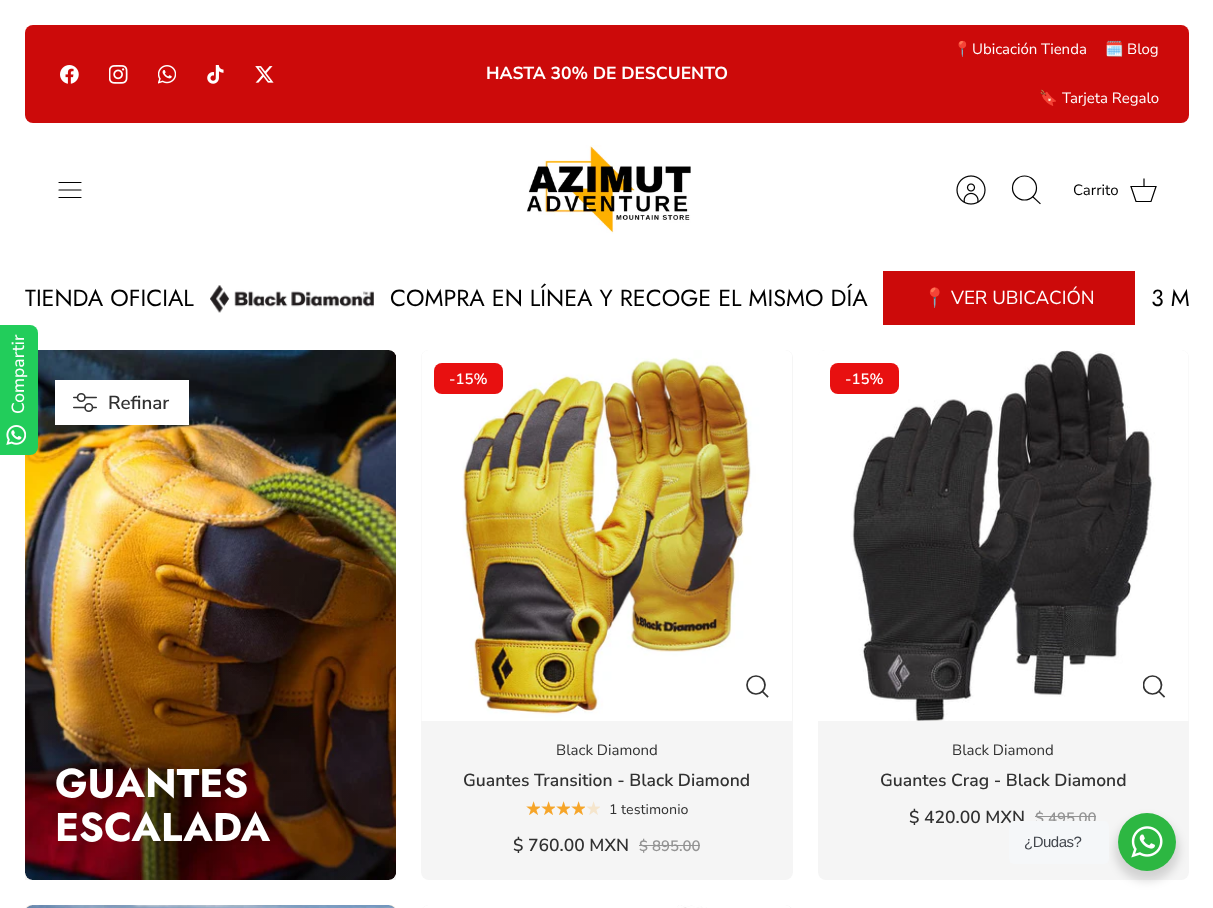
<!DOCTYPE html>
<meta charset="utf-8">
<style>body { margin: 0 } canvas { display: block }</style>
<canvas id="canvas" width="1213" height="908"></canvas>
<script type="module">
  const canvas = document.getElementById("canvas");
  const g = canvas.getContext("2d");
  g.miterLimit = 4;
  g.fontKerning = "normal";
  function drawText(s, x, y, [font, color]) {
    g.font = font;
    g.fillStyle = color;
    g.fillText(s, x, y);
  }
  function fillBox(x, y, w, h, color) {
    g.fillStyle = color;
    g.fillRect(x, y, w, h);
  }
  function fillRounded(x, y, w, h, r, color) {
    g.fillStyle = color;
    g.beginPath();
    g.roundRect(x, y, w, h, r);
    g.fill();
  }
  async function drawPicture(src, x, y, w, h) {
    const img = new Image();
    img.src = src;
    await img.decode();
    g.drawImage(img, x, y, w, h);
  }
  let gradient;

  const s1 = ["bold 17.5px Nunito Sans", "#FFFFFF"];
  const s2 = ["15px Noto Color Emoji", "#FFFFFF"];
  const s3 = ["15px Nunito Sans", "#FFFFFF"];
  const s4 = ["15px Nunito Sans", "#000000"];
  const s5 = ["23.4px Jost", "#000000"];
  const s6 = ["18.75px Noto Color Emoji", "#FFFFFF"];
  const s7 = ["18.75px Nunito Sans", "#FFFFFF"];
  const s8 = ["600 18.75px Nunito Sans", "#313131"];
  const s9 = ["bold 40px Jost", "#FFFFFF"];
  const s10 = ["600 15px Nunito Sans", "#FFFFFF"];
  const s11 = ["15px Nunito Sans", "#313131"];
  const s12 = ["600 17.5px Nunito Sans", "#313131"];
  const s13 = ["14px 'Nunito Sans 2'", "#313131"];
  const s14 = ["600 15px Nunito Sans", "#939393"];
  const s15 = ["15px Liberation Sans", "#43474E"];

  fillBox(0, 0, 1213, 908, "#FFFFFF");
  fillRounded(25, 25, 1164, 98, 8, "#CC0A0A");
  await drawPicture("pic1.png", 60, 65, 19, 19);
  await drawPicture("pic2.png", 109, 65, 19, 19);
  await drawPicture("pic3.png", 158, 65, 18, 19);
  await drawPicture("pic4.png", 207, 65, 17, 19);
  await drawPicture("pic5.png", 255, 66, 19, 17);
  drawText("HASTA 30% DE DESCUENTO", 486, 79, s1);
  drawText("📍", 953, 54, s2);
  drawText("Ubicación Tienda", 972, 54, s3);
  drawText("🗓️", 1105, 54, s2);
  drawText("Blog", 1127, 54, s3);
  drawText("🔖", 1039, 103, s2);
  drawText("Tarjeta Regalo", 1062, 103, s3);
  g.beginPath();
  g.moveTo(59, 190);
  g.lineTo(81, 190);
  g.moveTo(59, 182.5);
  g.lineTo(81, 182.5);
  g.moveTo(59, 197.5);
  g.lineTo(81, 197.5);
  g.strokeStyle = "#000000";
  g.lineWidth = 1.2;
  g.lineCap = "round";
  g.lineJoin = "round";
  g.stroke();
  await drawPicture("pic6.png", 526, 145, 165, 89);
  await drawPicture("pic7.png", 956, 175, 30, 30);
  g.beginPath();
  g.arc(1024.5, 188, 12, 0, Math.PI * 2);
  g.stroke();
  g.beginPath();
  g.moveTo(1033, 197);
  g.lineTo(1040, 203.5);
  g.lineCap = "square";
  g.lineJoin = "miter";
  g.stroke();
  drawText("Carrito", 1073, 195, s4);
  g.beginPath();
  g.moveTo(1131, 186.5);
  g.lineTo(1156, 186.5);
  g.lineTo(1151, 201.5);
  g.lineTo(1136, 201.5);
  g.closePath();
  g.lineCap = "butt";
  g.stroke();
  g.beginPath();
  g.moveTo(1144, 186);
  g.lineTo(1144, 179);
  g.lineCap = "square";
  g.stroke();
  fillRounded(25, 350, 371, 530, 8, "#F5F5F5");
  fillRounded(25, 350, 371, 530, 8, "rgba(246, 165, 41, 0.1)");
  await drawPicture("pic10.png", 25, 350, 371, 530);
  g.fillStyle = "#22CD5B";
  g.beginPath();
  g.roundRect(0, 325, 38, 130, [0, 8, 8, 0]);
  g.fill();
  g.font = "500 17.5px Nunito Sans";
  g.fillStyle = "#FFFFFF";
  g.save();
  g.translate(24, 414);
  g.rotate(-90 * Math.PI / 180);
  g.fillText("Compartir", 0, 0);
  g.restore();
  await drawPicture("pic8.png", 6, 425, 20, 20);
  drawText("TIENDA OFICIAL", 25, 306, s5);
  await drawPicture("pic9.png", 210, 285, 164, 28);
  drawText("COMPRA EN LÍNEA Y RECOGE EL MISMO DÍA", 390, 306, s5);
  fillBox(883, 271, 252, 54, "#CC0A0A");
  drawText("📍", 923, 304, s6);
  drawText("VER UBICACIÓN", 951, 304, s7);
  drawText("3 M", 1151, 306, s5);
  fillBox(55, 380, 134, 45, "#FFFFFF");
  await drawPicture("pic11.png", 73, 393, 24, 19);
  drawText("Refinar", 108, 409, s8);
  gradient = g.createRadialGradient(211, 769.19, 0, 211, 769.19, 397);
  gradient.addColorStop(0, "rgba(0, 0, 0, 0.15)");
  gradient.addColorStop(0.7, "rgba(0, 0, 0, 0)");
  g.fillStyle = gradient;
  g.beginPath();
  g.rect(25, 557, 371, 323);
  g.save();
  g.clip();
  g.scale(1, 416 / 397);
  g.fillRect(0, 0, 1213, 867);
  g.restore();
  drawText("GUANTES", 55, 797, s9);
  drawText("ESCALADA", 55, 841, s9);
  fillRounded(421, 350, 372, 530, 8, "#F5F5F5");
  await drawPicture("pic12.png", 421, 350, 371, 371);
  fillRounded(434, 363, 69, 31, 8, "#E81010");
  drawText("-15%", 449, 384, s10);
  g.beginPath();
  g.arc(756, 685, 9, 0, Math.PI * 2);
  g.strokeStyle = "#333333";
  g.lineWidth = 1.7;
  g.stroke();
  g.beginPath();
  g.moveTo(762.5, 691.5);
  g.lineTo(767.5, 696.5);
  g.stroke();
  drawText("Black Diamond", 556, 755, s11);
  drawText("Guantes Transition - Black Diamond", 463, 786, s12);
  await drawPicture("pic13.png", 526, 801, 14, 14);
  await drawPicture("pic13.png", 541, 801, 14, 14);
  await drawPicture("pic13.png", 556, 801, 14, 14);
  await drawPicture("pic13.png", 571, 801, 14, 14);
  await drawPicture("pic13.png", 586, 801, 14, 14);
  await drawPicture("pic14.png", 526, 801, 14, 14);
  await drawPicture("pic14.png", 541, 801, 14, 14);
  await drawPicture("pic14.png", 556, 801, 14, 14);
  await drawPicture("pic14.png", 571, 801, 14, 14);
  drawText("1 testimonio", 609, 814, s13);
  drawText("$ 760.00 MXN", 513, 851, s12);
  drawText("$ 895.00", 639, 851, s14);
  fillBox(639, 845, 61, 1, "#939393");
  fillRounded(818, 350, 371, 530, 8, "#F5F5F5");
  await drawPicture("pic15.png", 818, 350, 371, 371);
  fillRounded(830, 363, 69, 31, 8, "#E81010");
  drawText("-15%", 845, 384, s10);
  g.save();
  g.beginPath();
  g.rect(1143, 675, 22, 23);
  g.clip();
  g.beginPath();
  g.arc(1152.5, 685, 9, 0, Math.PI * 2);
  g.stroke();
  g.restore();
  g.beginPath();
  g.moveTo(1159, 691.5);
  g.lineTo(1164, 696.5);
  g.stroke();
  drawText("Black Diamond", 952, 755, s11);
  drawText("Guantes Crag - Black Diamond", 880, 786, s12);
  drawText("$ 420.00 MXN", 909, 823, s12);
  drawText("$ 495.00", 1035, 823, s14);
  fillBox(1035, 816, 61, 1, "#939393");
  fillRounded(25, 905, 371, 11, 8, "#F5F5F5");
  fillRounded(25, 905, 371, 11, 8, "rgba(246, 165, 41, 0.1)");
  await drawPicture("pic16.png", 26, 905, 369, 3);
  gradient = g.createRadialGradient(211, 949.07, 0, 211, 949.07, 397);
  gradient.addColorStop(0, "rgba(0, 0, 0, 0.15)");
  gradient.addColorStop(0.7, "rgba(0, 0, 0, 0)");
  g.fillStyle = gradient;
  g.beginPath();
  g.rect(104, 905, 215, 3);
  g.save();
  g.clip();
  g.scale(1, 489 / 397);
  g.fillRect(0, 0, 1213, 738);
  g.restore();
  g.fillStyle = "#F5F5F5";
  g.beginPath();
  g.moveTo(429, 905);
  g.lineTo(785, 905);
  g.bezierCurveTo(789.5, 905, 793, 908.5, 793, 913);
  g.lineTo(793, 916);
  g.lineTo(421, 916);
  g.lineTo(421, 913);
  g.bezierCurveTo(421, 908.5, 424.5, 905, 429, 905);
  g.closePath();
  g.fill();
  await drawPicture("pic17.png", 423, 905, 367, 3);
  g.fillStyle = "rgba(0, 0, 0, 0.14)";
  g.filter = "blur(5px)";
  g.beginPath();
  g.roundRect(1115, 818, 64, 63, 31.5);
  g.fill();
  g.filter = "none";
  fillRounded(1009, 821, 100, 43, 5, "#F5F7F9");
  g.letterSpacing = "-0.5px";
  drawText("¿Dudas?", 1024, 847, s15);
  g.fillStyle = "#2DB742";
  g.beginPath();
  g.arc(1147, 842, 29, 0, Math.PI * 2);
  g.fill();
  await drawPicture("pic18.png", 1131, 826, 32, 32);
</script>
